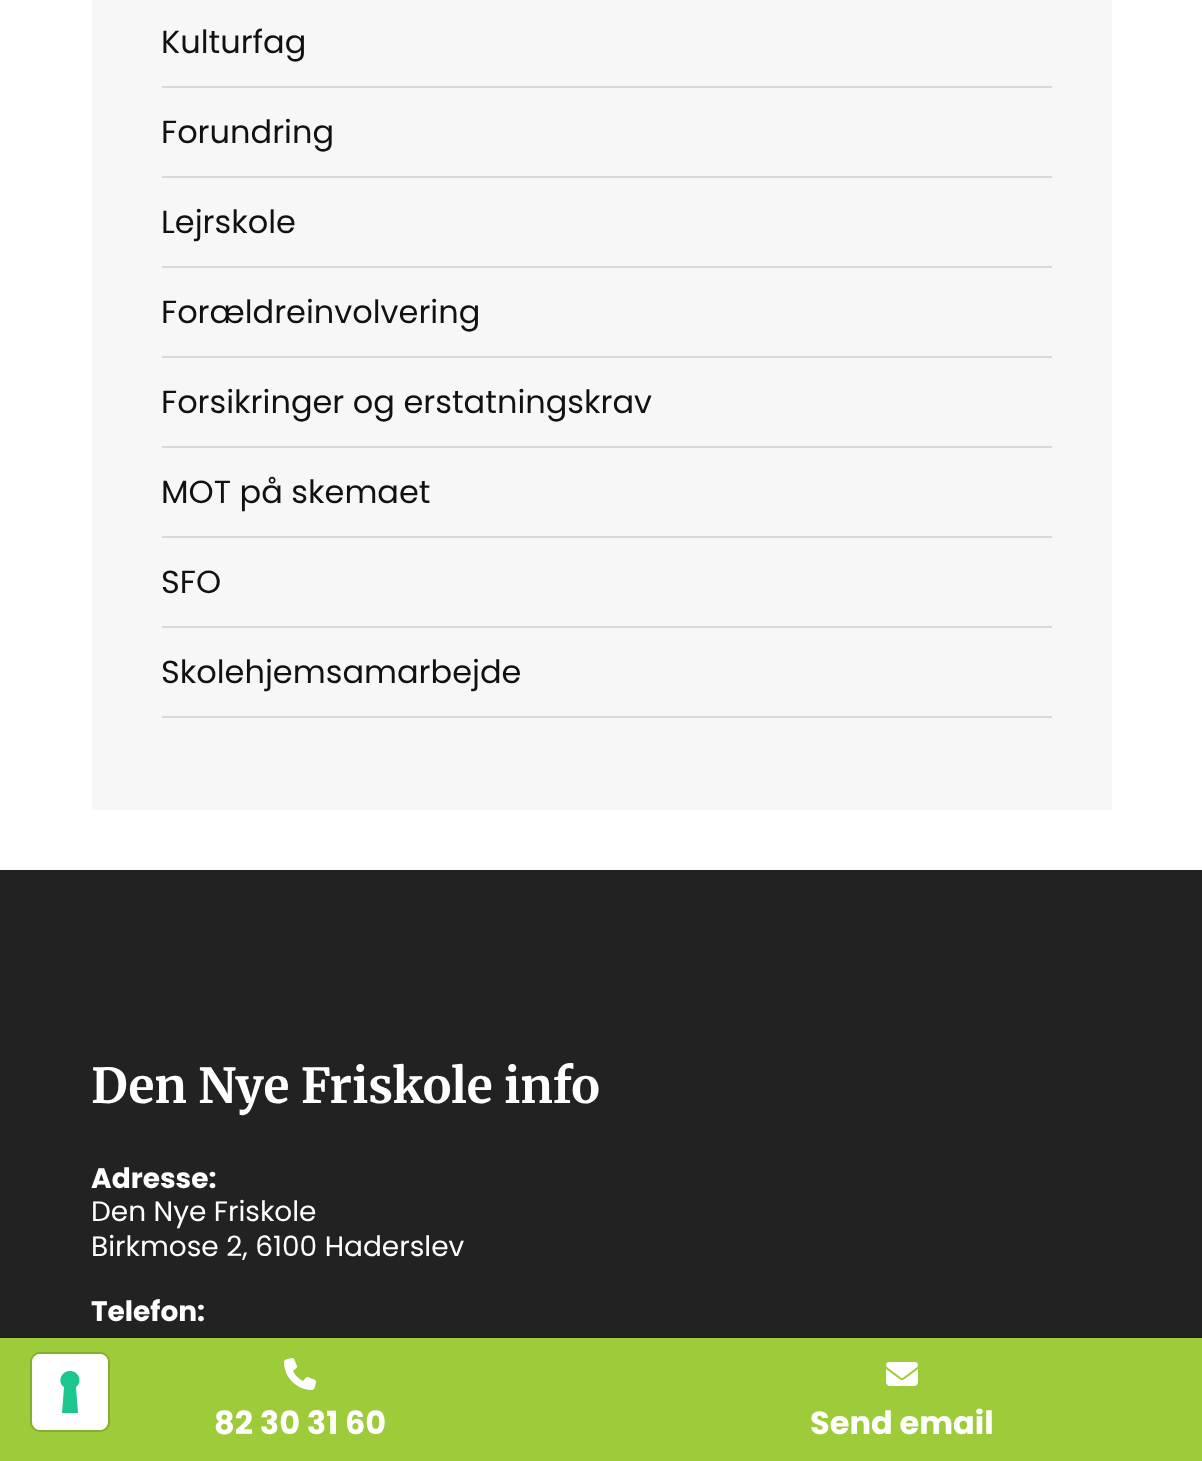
<!DOCTYPE html>
<meta charset="utf-8">
<style>body { margin: 0 } canvas { display: block }</style>
<canvas id="canvas" width="1202" height="1461"></canvas>
<script type="module">
  const canvas = document.getElementById("canvas");
  const g = canvas.getContext("2d");
  g.miterLimit = 4;
  g.fontKerning = "normal";
  function drawText(s, x, y, [font, color]) {
    g.font = font;
    g.fillStyle = color;
    g.fillText(s, x, y);
  }
  function fillBox(x, y, w, h, color) {
    g.fillStyle = color;
    g.fillRect(x, y, w, h);
  }
  function fillRounded(x, y, w, h, r, color) {
    g.fillStyle = color;
    g.beginPath();
    g.roundRect(x, y, w, h, r);
    g.fill();
  }
  async function drawPicture(src, x, y, w, h) {
    const img = new Image();
    img.src = src;
    await img.decode();
    g.drawImage(img, x, y, w, h);
  }

  const s1 = ["32px Poppins", "#111111"];
  const s2 = ["bold 48px Merriweather", "#FFFFFF"];
  const s3 = ["bold 28px Poppins", "#FFFFFF"];
  const s4 = ["28px Poppins", "#FFFFFF"];
  const s5 = ["bold 32px Poppins", "#FFFFFF"];

  fillBox(0, 0, 1202, 1461, "#FFFFFF");
  fillBox(0, 1338, 1202, 123, "#9DCB3A");
  g.beginPath();
  g.roundRect(31, 1353, 78, 78, 9);
  g.strokeStyle = "#85AD31";
  g.lineWidth = 2;
  g.stroke();
  fillRounded(32, 1354, 76, 76, 8, "#FFFFFF");
  g.fillStyle = "#1CC691";
  g.beginPath();
  g.moveTo(70, 1371);
  g.bezierCurveTo(79, 1371, 83, 1382, 76, 1387);
  g.lineTo(78, 1413);
  g.lineTo(62, 1413);
  g.lineTo(64, 1387);
  g.bezierCurveTo(57, 1382, 61, 1371, 70, 1371);
  g.closePath();
  g.fill("evenodd");
  fillBox(92, 0, 1020, 810, "#F7F7F7");
  fillBox(162, 86, 890, 2, "#D9D9D9");
  drawText("Kulturfag", 161, 53, s1);
  fillBox(162, 176, 890, 2, "#D9D9D9");
  drawText("Forundring", 161, 143, s1);
  fillBox(162, 266, 890, 2, "#D9D9D9");
  drawText("Lejrskole", 161, 233, s1);
  fillBox(162, 356, 890, 2, "#D9D9D9");
  drawText("Forældreinvolvering", 161, 323, s1);
  fillBox(162, 446, 890, 2, "#D9D9D9");
  drawText("Forsikringer og erstatningskrav", 161, 413, s1);
  fillBox(162, 536, 890, 2, "#D9D9D9");
  drawText("MOT på skemaet", 161, 503, s1);
  fillBox(162, 626, 890, 2, "#D9D9D9");
  drawText("SFO", 161, 593, s1);
  fillBox(162, 716, 890, 2, "#D9D9D9");
  drawText("Skolehjemsamarbejde", 161, 683, s1);
  fillBox(0, 870, 1202, 468, "#222222");
  drawText("Den Nye Friskole info", 91, 1103, s2);
  drawText("Adresse:", 91, 1188, s3);
  drawText("Den Nye Friskole", 91, 1221, s4);
  drawText("Birkmose 2, 6100 Haderslev", 91, 1256, s4);
  drawText("Telefon:", 91, 1321, s3);
  await drawPicture("pic1.png", 284, 1358, 32, 32);
  drawText("82 30 31 60", 214, 1434, s5);
  await drawPicture("pic2.png", 886, 1362, 32, 24);
  drawText("Send email", 810, 1434, s5);
</script>
